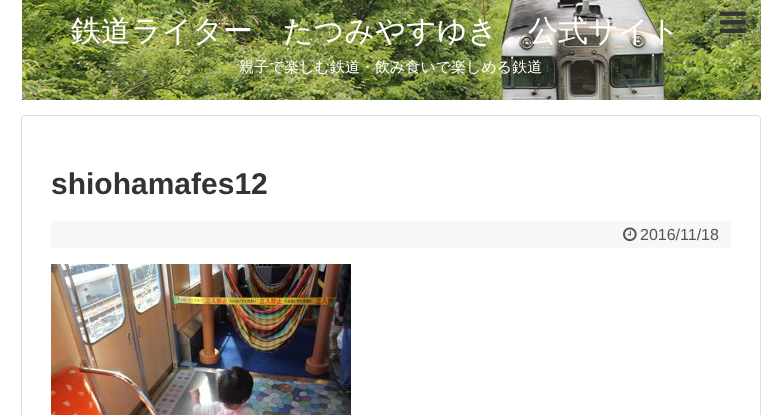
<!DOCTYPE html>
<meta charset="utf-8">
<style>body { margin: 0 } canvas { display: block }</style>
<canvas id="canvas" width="781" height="415"></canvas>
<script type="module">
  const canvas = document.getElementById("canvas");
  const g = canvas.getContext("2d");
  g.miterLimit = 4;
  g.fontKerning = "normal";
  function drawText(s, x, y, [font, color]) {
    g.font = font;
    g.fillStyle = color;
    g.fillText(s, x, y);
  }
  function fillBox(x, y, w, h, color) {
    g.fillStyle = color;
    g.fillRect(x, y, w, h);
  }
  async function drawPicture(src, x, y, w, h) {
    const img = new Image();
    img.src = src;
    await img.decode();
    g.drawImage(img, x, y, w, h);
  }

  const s1 = ["500 30px WenQuanYi Zen Hei", "#FFFFFF"];
  const s2 = ["500 15px WenQuanYi Zen Hei", "#FFFFFF"];
  const s3 = ["bold 30px Liberation Sans", "#333333"];
  const s4 = ["16px Liberation Sans", "#555555"];

  fillBox(0, 0, 781, 415, "#FFFFFF");
  await drawPicture("pic1.png", 21, 0, 740, 100);
  drawText("鉄道ライター　たつみやすゆき　公式サイト", 71, 41, s1);
  drawText("親子で楽しむ鉄道・飲み食いで楽しめる鉄道", 239, 72, s2);
  await drawPicture("pic2.png", 720, 11, 26, 22);
  g.beginPath();
  g.roundRect(21.5, 115.5, 739, 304, 3.5);
  g.strokeStyle = "#DDDDDD";
  g.stroke();
  drawText("shiohamafes12", 51, 194, s3);
  fillBox(51, 221, 680, 27, "#F7F7F7");
  await drawPicture("pic3.png", 623, 227, 14, 15);
  drawText("2016/11/18", 640, 240, s4);
  await drawPicture("pic4.png", 51, 264, 300, 151);
</script>
